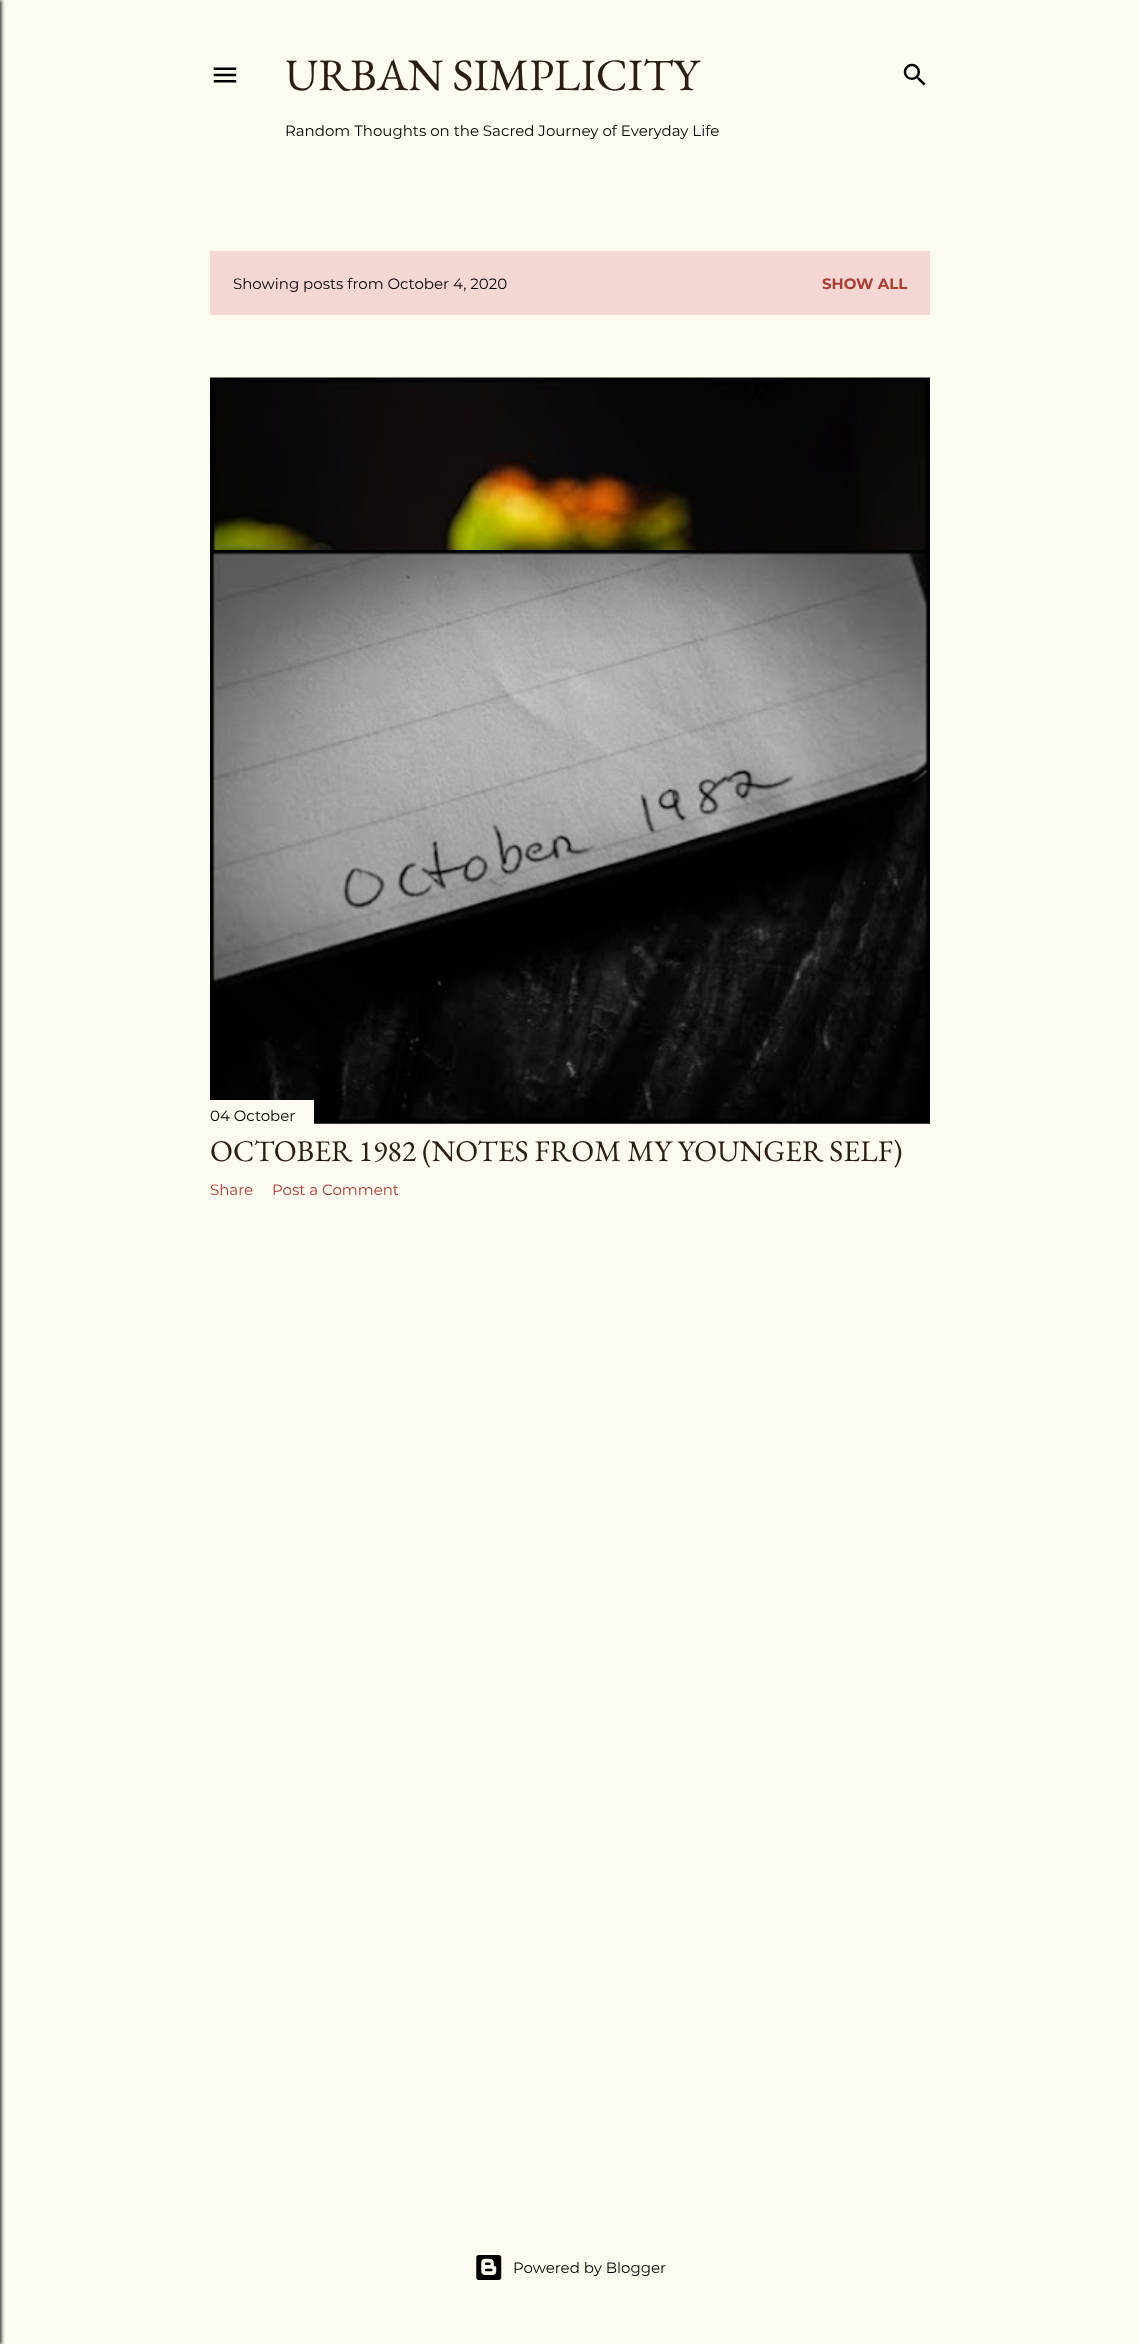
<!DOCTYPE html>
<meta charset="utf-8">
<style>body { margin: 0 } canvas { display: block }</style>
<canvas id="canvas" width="1139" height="2344"></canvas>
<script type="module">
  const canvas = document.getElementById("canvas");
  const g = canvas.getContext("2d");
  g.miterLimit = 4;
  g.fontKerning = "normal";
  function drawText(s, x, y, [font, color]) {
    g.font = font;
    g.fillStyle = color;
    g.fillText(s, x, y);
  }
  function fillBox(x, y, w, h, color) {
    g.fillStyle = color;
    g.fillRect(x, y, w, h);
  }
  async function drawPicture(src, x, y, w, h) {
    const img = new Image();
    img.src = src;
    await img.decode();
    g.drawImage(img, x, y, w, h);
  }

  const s1 = ["45px EB Garamond", "#2C1D14"];
  const s2 = ["15px Montserrat", "#000000"];
  const s3 = ["bold 15px Montserrat", "#A93E33"];
  const s4 = ["30px EB Garamond", "#2C1D14"];
  const s5 = ["15px Montserrat", "#A93E33"];

  fillBox(0, 0, 1139, 2344, "#FDFAF0");
  g.fillStyle = "#000000";
  g.filter = "blur(2px)";
  g.beginPath();
  g.rect(-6, 0, 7, 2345);
  g.fill();
  g.filter = "none";
  await drawPicture("pic1.png", 213, 67, 24, 16);
  drawText("URBAN SIMPLICITY", 285, 90, s1);
  drawText("Random Thoughts on the Sacred Journey of Everyday Life", 285, 136, s2);
  await drawPicture("pic2.png", 903, 63, 23, 23);
  fillBox(210, 251, 720, 64, "#F4D6D3");
  drawText("Showing posts from October 4, 2020", 233, 289, s2);
  drawText("SHOW ALL", 822, 289, s3);
  await drawPicture("pic3.png", 210, 377, 720, 173);
  await drawPicture("pic4.png", 210, 550, 720, 574);
  fillBox(210, 1100, 104, 24, "#FDFAF0");
  drawText("04 October", 210, 1121, s2);
  drawText("OCTOBER 1982 (NOTES FROM MY YOUNGER SELF)", 210, 1161, s4);
  drawText("Share", 210, 1195, s5);
  drawText("Post a Comment", 272, 1195, s5);
  await drawPicture("pic5.png", 476, 2255, 26, 25);
  drawText("Powered by Blogger", 513, 2273, s2);
</script>
